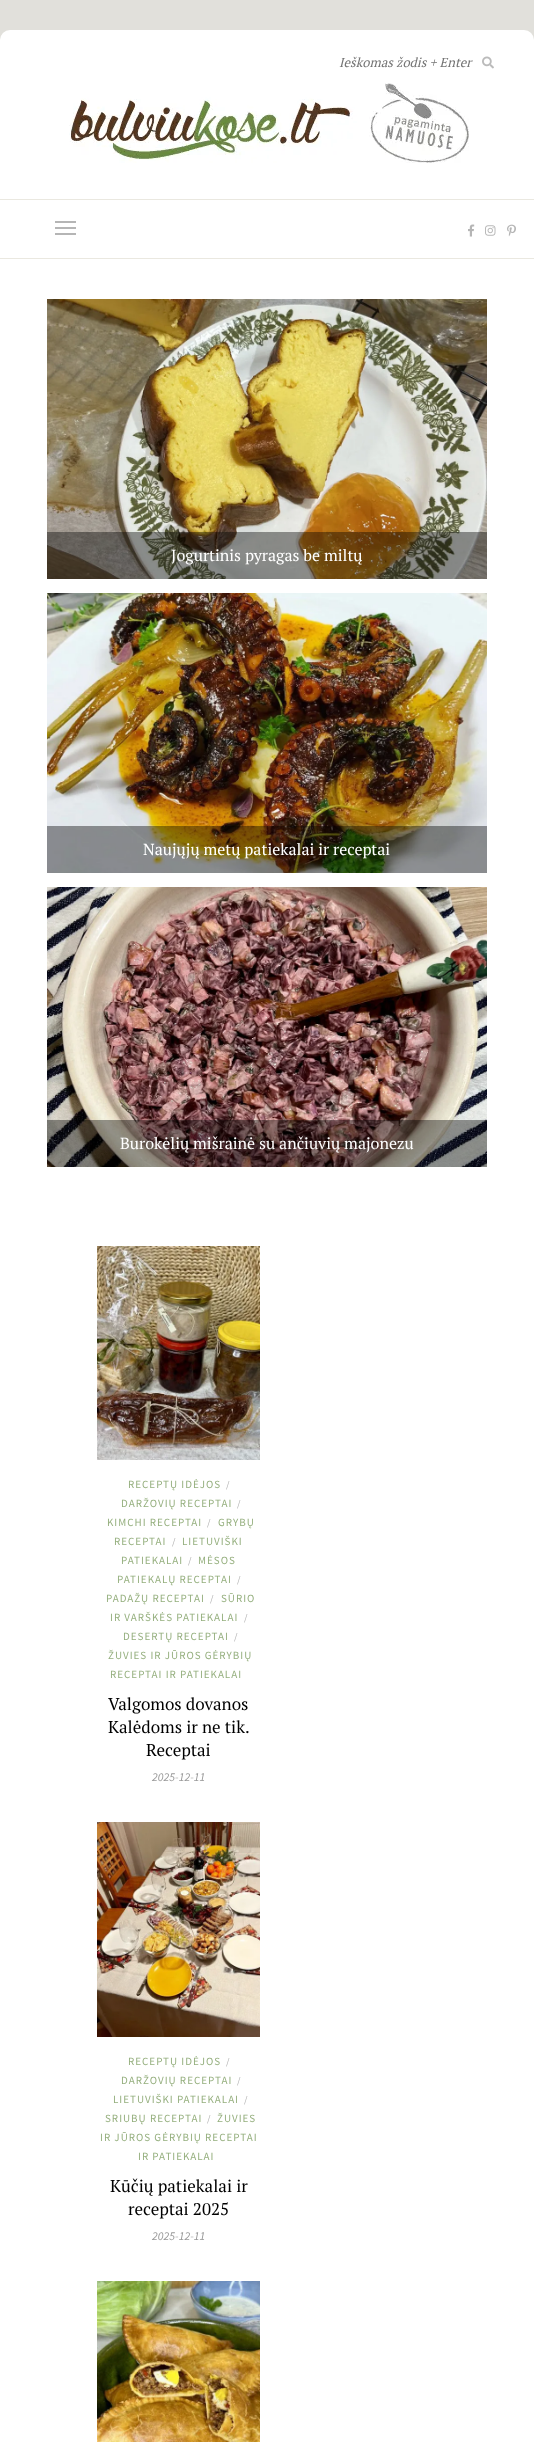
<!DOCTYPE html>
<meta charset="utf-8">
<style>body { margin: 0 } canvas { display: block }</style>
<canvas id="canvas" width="534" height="2442"></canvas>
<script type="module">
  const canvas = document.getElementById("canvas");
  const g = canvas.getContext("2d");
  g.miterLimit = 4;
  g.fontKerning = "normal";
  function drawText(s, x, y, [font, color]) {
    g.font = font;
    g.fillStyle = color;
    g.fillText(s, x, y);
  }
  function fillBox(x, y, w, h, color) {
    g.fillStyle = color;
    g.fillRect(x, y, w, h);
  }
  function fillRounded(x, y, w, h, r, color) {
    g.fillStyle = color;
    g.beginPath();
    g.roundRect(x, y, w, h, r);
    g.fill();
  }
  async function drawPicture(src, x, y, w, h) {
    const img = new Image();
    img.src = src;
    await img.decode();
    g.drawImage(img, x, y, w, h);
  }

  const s1 = ["italic 13px PT Serif", "#757575"];
  const s2 = ["16px PT Serif", "#FFFFFF"];
  const s3 = ["11px Source Sans Pro", "#95AF7E"];
  const s4 = ["10px Source Sans Pro", "#B5B5B5"];
  const s5 = ["17px PT Serif", "#000000"];
  const s6 = ["italic 12px Source Sans Pro", "#999999"];

  fillBox(0, 0, 534, 2442, "#E1E0DB");
  fillRounded(0, 30, 534, 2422, 10, "#FFFFFF");
  drawText("Ieškomas žodis + Enter", 339, 67, s1);
  await drawPicture("pic1.png", 482, 56, 12, 13);
  await drawPicture("pic2.png", 69, 83, 400, 80);
  fillBox(0, 199, 534, 1, "#EAE8E0");
  fillBox(0, 258, 534, 1, "#EAE8E0");
  fillBox(55, 221, 21, 2, "#B5B5B5");
  fillBox(55, 227, 21, 2, "#B5B5B5");
  fillBox(55, 233, 21, 2, "#B5B5B5");
  await drawPicture("pic3.png", 468, 224, 7, 13);
  await drawPicture("pic4.png", 485, 225, 11, 11);
  await drawPicture("pic5.png", 507, 224, 9, 13);
  await drawPicture("pic6.png", 47, 299, 440, 280);
  fillBox(47, 532, 440, 47, "rgba(0, 0, 0, 0.4)");
  drawText("Jogurtinis pyragas be miltų", 171, 561, s2);
  await drawPicture("pic7.png", 47, 593, 440, 280);
  fillBox(47, 826, 440, 47, "rgba(0, 0, 0, 0.4)");
  drawText("Naujųjų metų patiekalai ir receptai", 143, 855, s2);
  await drawPicture("pic8.png", 47, 887, 440, 280);
  fillBox(47, 1120, 440, 47, "rgba(0, 0, 0, 0.4)");
  drawText("Burokėlių mišrainė su ančiuvių majonezu", 120, 1149, s2);
  await drawPicture("pic9.png", 97, 1246, 163, 214);
  g.letterSpacing = "1px";
  drawText("RECEPTŲ IDĖJOS", 128, 1488, s3);
  g.letterSpacing = "0px";
  drawText("/", 226, 1488, s4);
  g.letterSpacing = "1px";
  drawText("DARŽOVIŲ RECEPTAI", 121, 1507, s3);
  g.letterSpacing = "0px";
  drawText("/", 237, 1507, s4);
  g.letterSpacing = "1px";
  drawText("KIMCHI RECEPTAI", 107, 1526, s3);
  g.letterSpacing = "0px";
  drawText("/", 207, 1526, s4);
  g.letterSpacing = "1px";
  drawText("GRYBŲ", 218, 1526, s3);
  drawText("RECEPTAI", 114, 1545, s3);
  g.letterSpacing = "0px";
  drawText("/", 172, 1545, s4);
  g.letterSpacing = "1px";
  drawText("LIETUVIŠKI", 182, 1545, s3);
  drawText("PATIEKALAI", 121, 1564, s3);
  g.letterSpacing = "0px";
  drawText("/", 188, 1564, s4);
  g.letterSpacing = "1px";
  drawText("MĖSOS", 198, 1564, s3);
  drawText("PATIEKALŲ RECEPTAI", 117, 1583, s3);
  g.letterSpacing = "0px";
  drawText("/", 237, 1583, s4);
  g.letterSpacing = "1px";
  drawText("PADAŽŲ RECEPTAI", 106, 1602, s3);
  g.letterSpacing = "0px";
  drawText("/", 210, 1602, s4);
  g.letterSpacing = "1px";
  drawText("SŪRIO", 221, 1602, s3);
  drawText("IR VARŠKĖS PATIEKALAI", 110, 1621, s3);
  g.letterSpacing = "0px";
  drawText("/", 244, 1621, s4);
  g.letterSpacing = "1px";
  drawText("DESERTŲ RECEPTAI", 123, 1640, s3);
  g.letterSpacing = "0px";
  drawText("/", 234, 1640, s4);
  g.letterSpacing = "1px";
  drawText("ŽUVIES IR JŪROS GĖRYBIŲ", 108, 1659, s3);
  drawText("RECEPTAI IR PATIEKALAI", 110, 1678, s3);
  g.letterSpacing = "0px";
  drawText("Valgomos dovanos", 108, 1710, s5);
  drawText("Kalėdoms ir ne tik.", 108, 1733, s5);
  drawText("Receptai", 146, 1756, s5);
  drawText("2025-12-11", 152, 1781, s6);
  await drawPicture("pic10.png", 97, 1822, 163, 215);
  g.letterSpacing = "1px";
  drawText("RECEPTŲ IDĖJOS", 128, 2065, s3);
  g.letterSpacing = "0px";
  drawText("/", 226, 2065, s4);
  g.letterSpacing = "1px";
  drawText("DARŽOVIŲ RECEPTAI", 121, 2084, s3);
  g.letterSpacing = "0px";
  drawText("/", 237, 2084, s4);
  g.letterSpacing = "1px";
  drawText("LIETUVIŠKI PATIEKALAI", 113, 2103, s3);
  g.letterSpacing = "0px";
  drawText("/", 244, 2103, s4);
  g.letterSpacing = "1px";
  drawText("SRIUBŲ RECEPTAI", 105, 2122, s3);
  g.letterSpacing = "0px";
  drawText("/", 207, 2122, s4);
  g.letterSpacing = "1px";
  drawText("ŽUVIES", 217, 2122, s3);
  drawText("IR JŪROS GĖRYBIŲ RECEPTAI", 100, 2141, s3);
  drawText("IR PATIEKALAI", 138, 2160, s3);
  g.letterSpacing = "0px";
  drawText("Kūčių patiekalai ir", 110, 2192, s5);
  drawText("receptai 2025", 128, 2215, s5);
  drawText("2025-12-11", 152, 2240, s6);
  await drawPicture("pic11.png", 97, 2281, 163, 161);
</script>
